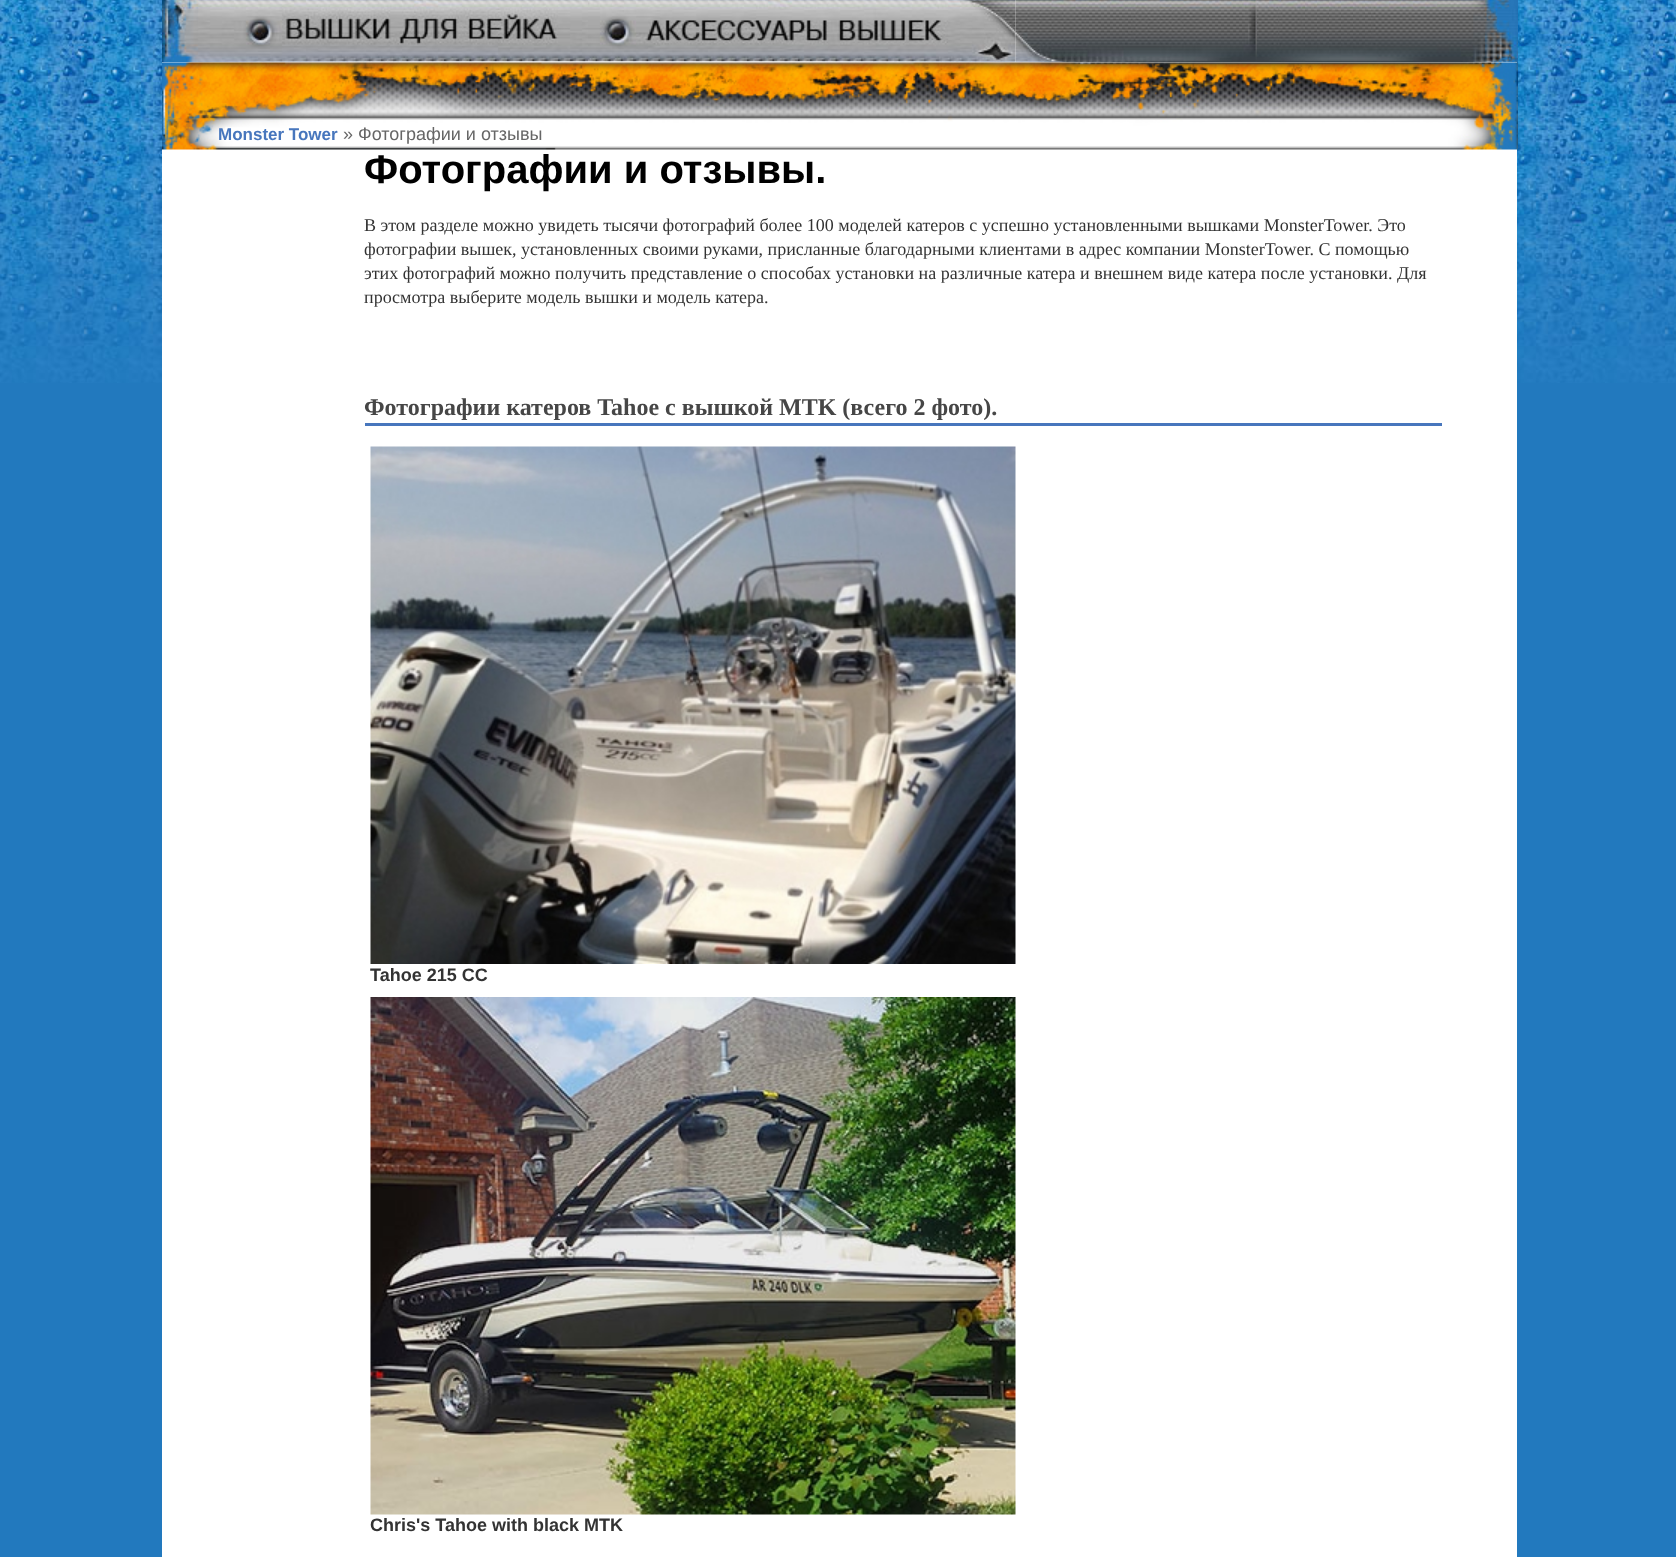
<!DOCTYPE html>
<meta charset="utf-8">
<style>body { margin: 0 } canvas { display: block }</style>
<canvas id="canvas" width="1676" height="1557"></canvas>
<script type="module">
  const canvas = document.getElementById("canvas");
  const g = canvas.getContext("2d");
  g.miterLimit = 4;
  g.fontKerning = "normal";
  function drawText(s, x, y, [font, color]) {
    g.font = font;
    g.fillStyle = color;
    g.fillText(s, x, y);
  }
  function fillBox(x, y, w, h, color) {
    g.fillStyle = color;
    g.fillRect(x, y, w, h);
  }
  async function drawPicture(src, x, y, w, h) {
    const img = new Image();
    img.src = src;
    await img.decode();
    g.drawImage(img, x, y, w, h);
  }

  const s1 = ["bold 17px Liberation Sans", "#4776BD"];
  const s2 = ["18px Liberation Sans", "#666666"];
  const s3 = ["bold 40px Liberation Sans", "#000000"];
  const s4 = ["18px Liberation Serif", "#333333"];
  const s5 = ["bold 24px Liberation Serif", "#464646"];
  const s6 = ["bold 18px Liberation Sans", "#333333"];

  fillBox(0, 0, 1676, 1557, "#2279BE");
  await drawPicture("pic1.png", 0, 0, 1676, 383);
  fillBox(162, 0, 1355, 1557, "#FFFFFF");
  await drawPicture("pic2.png", 162, 0, 426, 63);
  await drawPicture("pic3.png", 588, 0, 428, 63);
  await drawPicture("pic4.png", 1015, 0, 242, 63);
  await drawPicture("pic5.png", 1257, 0, 261, 63);
  await drawPicture("pic6.png", 162, 62, 1356, 88);
  drawText("Monster Tower", 218, 140, s1);
  drawText("» Фотографии и отзывы", 343, 140, s2);
  drawText("Фотографии и отзывы.", 364, 183, s3);
  drawText("В этом разделе можно увидеть тысячи фотографий более 100 моделей катеров с успешно установленными вышками MonsterTower. Это", 364, 231, s4);
  drawText("фотографии вышек, установленных своими руками, присланные благодарными клиентами в адрес компании MonsterTower. С помощью", 364, 255, s4);
  drawText("этих фотографий можно получить представление о способах установки на различные катера и внешнем виде катера после установки. Для", 364, 279, s4);
  drawText("просмотра выберите модель вышки и модель катера.", 364, 303, s4);
  fillBox(365, 423, 1077, 3, "#4776BD");
  drawText("Фотографии катеров Tahoe с вышкой MTK (всего 2 фото).", 364, 415, s5);
  await drawPicture("pic7.png", 370, 446, 646, 518);
  drawText("Tahoe 215 CC", 370, 981, s6);
  await drawPicture("pic8.png", 370, 997, 646, 518);
  drawText("Chris's Tahoe with black MTK", 370, 1531, s6);
</script>
